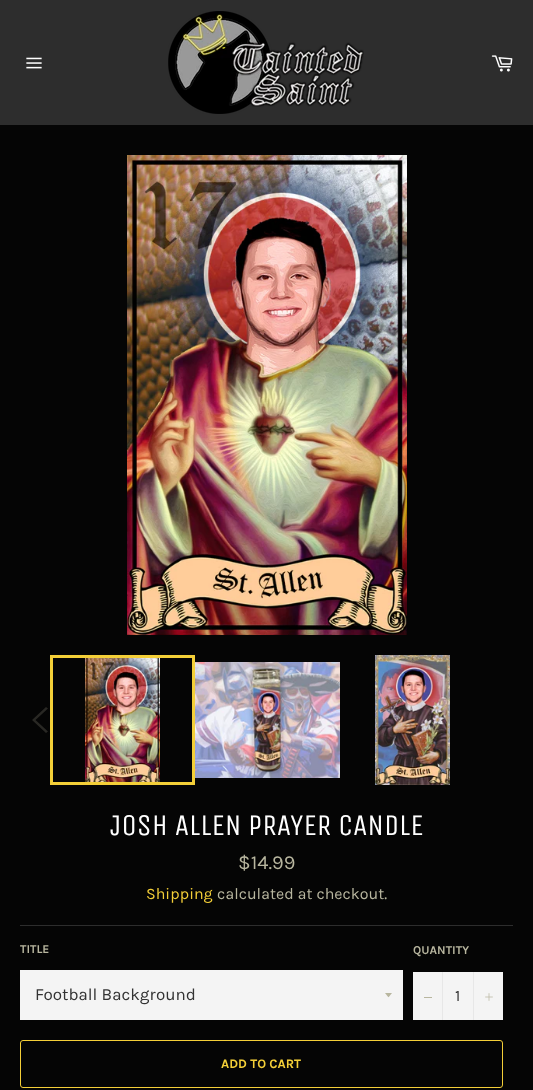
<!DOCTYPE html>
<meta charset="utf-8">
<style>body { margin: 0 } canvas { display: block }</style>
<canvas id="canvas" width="533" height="1090"></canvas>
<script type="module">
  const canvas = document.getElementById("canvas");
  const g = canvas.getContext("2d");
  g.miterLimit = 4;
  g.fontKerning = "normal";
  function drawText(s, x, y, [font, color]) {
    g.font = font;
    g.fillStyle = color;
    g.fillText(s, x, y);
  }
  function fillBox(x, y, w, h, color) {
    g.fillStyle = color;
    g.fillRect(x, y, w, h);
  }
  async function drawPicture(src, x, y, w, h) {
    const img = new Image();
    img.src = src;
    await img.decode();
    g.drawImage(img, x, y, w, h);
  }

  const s1 = ["30px Unica One", "#FFFFFF"];
  const s2 = ["20px Karla", "#B8B69F"];
  const s3 = ["16px Karla", "#F4CF38"];
  const s4 = ["16px Karla", "#B8B69F"];
  const s5 = ["bold 12px Karla", "#B8B69F"];
  const s6 = ["17px Karla", "#333333"];
  const s7 = ["16px Karla", "#333333"];
  const s8 = ["bold 13px Karla", "#F4CF38"];

  fillBox(0, 0, 533, 1090, "#2D2D2D");
  await drawPicture("pic1.png", 26, 57, 16, 12);
  await drawPicture("pic2.png", 168, 11, 196, 103);
  await drawPicture("pic3.png", 491, 55, 22, 17);
  fillBox(0, 125, 533, 965, "#050505");
  await drawPicture("pic4.png", 127, 155, 280, 480);
  g.fillStyle = "#292824";
  g.beginPath();
  g.moveTo(48, 731.5);
  g.lineTo(46, 733);
  g.lineTo(32, 720);
  g.lineTo(46, 707);
  g.lineTo(48, 708.5);
  g.lineTo(35.5, 720);
  g.closePath();
  g.fill();
  await drawPicture("pic5.png", 85, 658, 75, 124);
  g.strokeStyle = "#F4CF38";
  g.lineWidth = 3;
  g.strokeRect(51.5, 656.5, 142, 127);
  await drawPicture("pic6.png", 195, 662, 145, 116);
  await drawPicture("pic7.png", 375, 655, 75, 130);
  drawText("JOSH ALLEN PRAYER CANDLE", 110, 835, s1);
  drawText("$14.99", 238, 869, s2);
  drawText("Shipping", 146, 899, s3);
  drawText("calculated at checkout.", 217, 899, s4);
  fillBox(20, 925, 493, 1, "#2D2D2D");
  drawText("TITLE", 20, 953, s5);
  fillBox(20, 970, 383, 50, "#F4F4F4");
  g.fillStyle = "#B8B69F";
  g.beginPath();
  g.moveTo(385, 993);
  g.bezierCurveTo(389.5, 998.5, 387.5, 998.5, 392, 993);
  g.closePath();
  g.fill();
  drawText("Football Background", 35, 1000, s6);
  drawText("QUANTITY", 413, 954, s5);
  fillBox(413, 972, 90, 48, "#F4F4F4");
  fillBox(442, 972, 1, 48, "#E7E7E7");
  fillBox(424, 997, 8, 1, "#B8B69F");
  drawText("1", 455, 1001, s7);
  fillBox(473, 972, 1, 48, "#E7E7E7");
  await drawPicture("pic8.png", 485, 993, 8, 8);
  g.beginPath();
  g.roundRect(20.5, 1040.5, 482, 47, 2.5);
  g.lineWidth = 1;
  g.stroke();
  drawText("ADD TO CART", 221, 1068, s8);
</script>
